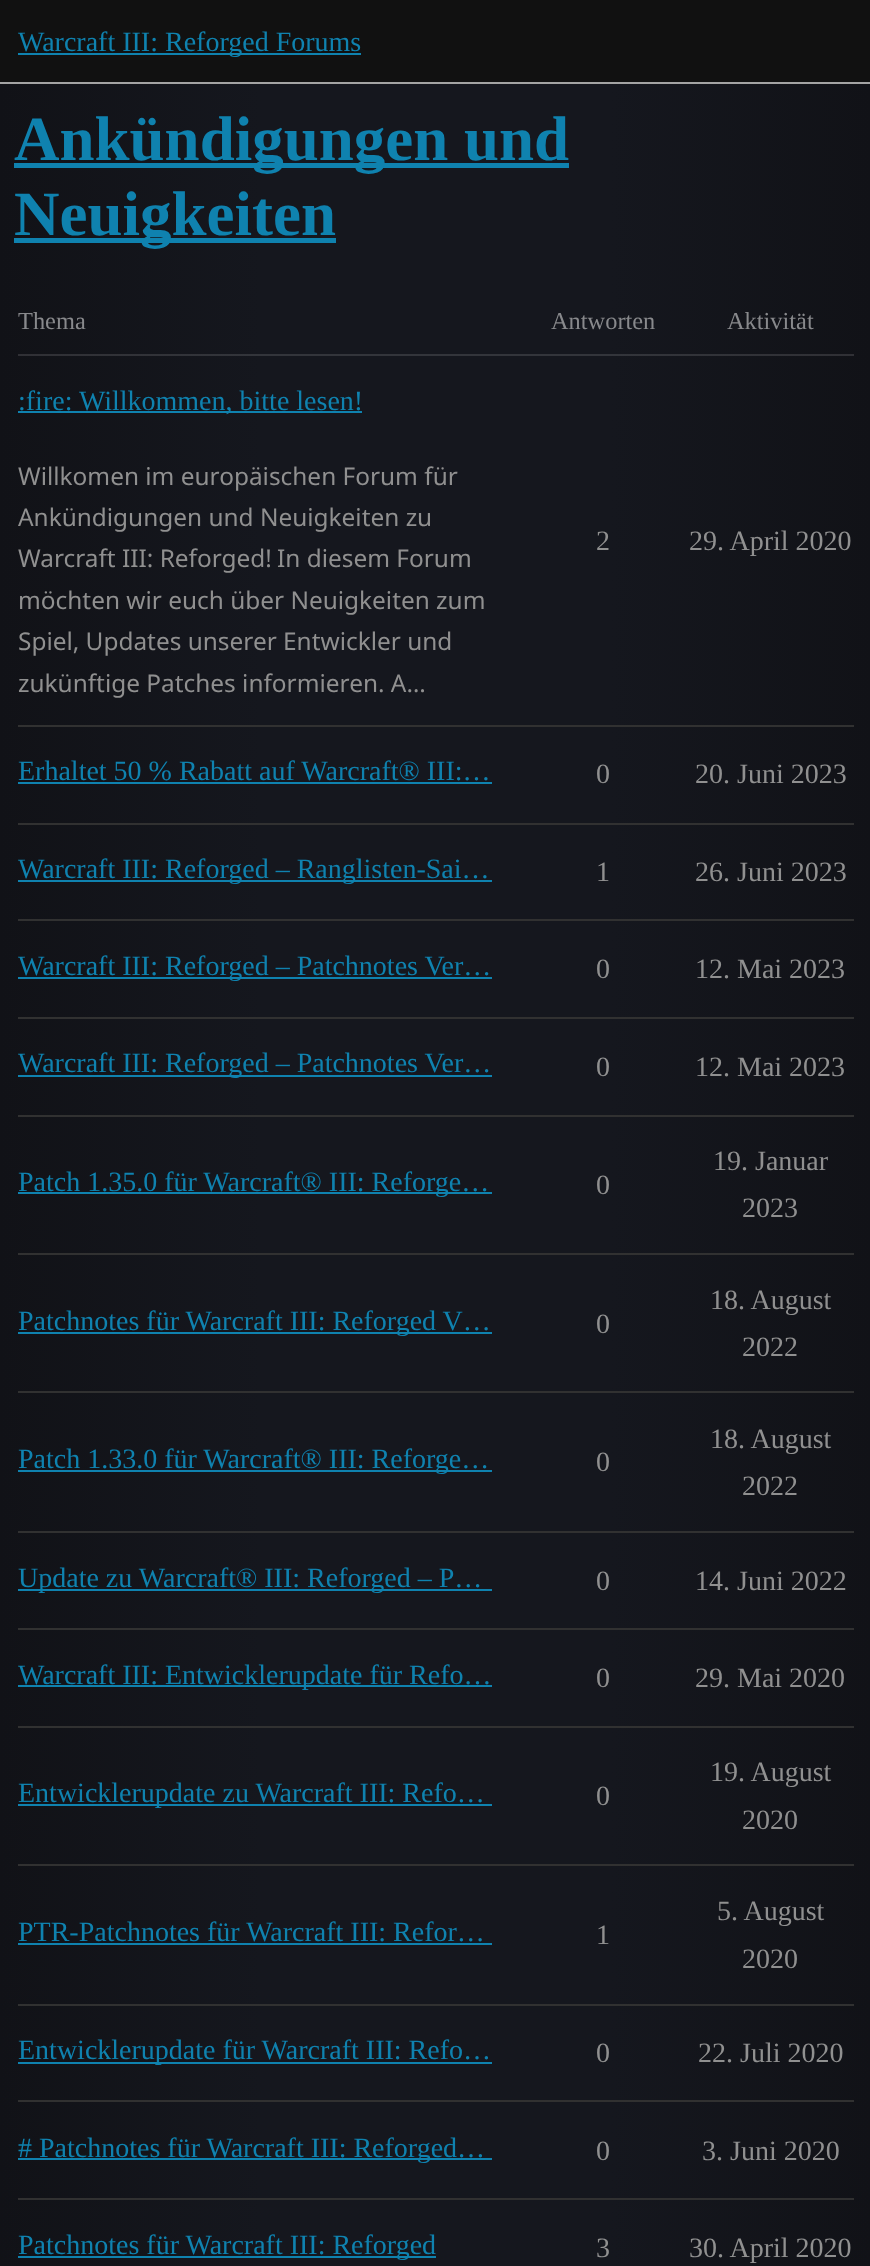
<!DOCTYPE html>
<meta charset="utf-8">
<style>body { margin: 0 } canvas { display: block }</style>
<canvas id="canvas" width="870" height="2266"></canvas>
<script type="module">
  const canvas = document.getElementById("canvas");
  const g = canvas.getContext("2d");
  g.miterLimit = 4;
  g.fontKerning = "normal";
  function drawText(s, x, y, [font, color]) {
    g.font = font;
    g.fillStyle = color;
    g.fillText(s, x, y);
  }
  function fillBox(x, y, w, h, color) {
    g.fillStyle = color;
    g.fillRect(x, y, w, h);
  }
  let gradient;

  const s1 = ["28px Liberation Serif", "#0F82AF"];
  const s2 = ["bold 63px Liberation Serif", "#0F82AF"];
  const s3 = ["24.4px Liberation Serif", "#88898C"];
  const s4 = ["24.4px Noto Sans", "#909090"];
  const s5 = ["28px Liberation Serif", "#909090"];

  fillBox(0, 0, 870, 2266, "#FFFFFF");
  gradient = g.createLinearGradient(0, 1350, 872, 1350);
  gradient.addColorStop(0, "#111217");
  gradient.addColorStop(0.3, "#15171E");
  gradient.addColorStop(0.7, "#15171E");
  gradient.addColorStop(1, "#111217");
  g.fillStyle = gradient;
  g.fillRect(0, 84, 870, 2182);
  gradient = g.createLinearGradient(0, 1350, 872, 1350);
  gradient.addColorStop(0, "#303035");
  gradient.addColorStop(0.3, "#33353B");
  gradient.addColorStop(0.7, "#33353B");
  gradient.addColorStop(1, "#303035");
  g.fillStyle = gradient;
  g.fillRect(18, 354, 836, 2);
  fillBox(0, 0, 870, 82, "#111111");
  fillBox(0, 82, 870, 2, "#A4A4A4");
  fillBox(18, 53, 343, 2, "#0F82AF");
  drawText("Warcraft III: Reforged Forums", 18, 51, s1);
  fillBox(14, 163, 555, 5, "#0F82AF");
  drawText("Ankündigungen und", 14, 160, s2);
  fillBox(14, 238, 322, 5, "#0F82AF");
  drawText("Neuigkeiten", 14, 235, s2);
  drawText("Thema", 18, 329, s3);
  drawText("Antworten", 551, 329, s3);
  drawText("Aktivität", 727, 329, s3);
  fillBox(18, 725, 836, 2, "#313131");
  fillBox(18, 411, 344, 2, "#0F82AF");
  drawText(":fire: Willkommen, bitte lesen!", 18, 410, s1);
  drawText("Willkomen im europäischen Forum für", 18, 485, s4);
  drawText("Ankündigungen und Neuigkeiten zu", 18, 526, s4);
  drawText("Warcraft III: Reforged!", 18, 567, s4);
  drawText("In diesem Forum", 277, 567, s4);
  drawText("möchten wir euch über Neuigkeiten zum", 18, 609, s4);
  drawText("Spiel, Updates unserer Entwickler und", 18, 650, s4);
  drawText("zukünftige Patches informieren. A…", 18, 692, s4);
  drawText("2", 596, 550, s5);
  drawText("29. April 2020", 689, 550, s5);
  fillBox(18, 823, 836, 2, "#313131");
  drawText("Erhaltet 50 % Rabatt auf Warcraft® III:…", 18, 780, s1);
  fillBox(18, 782, 474, 2, "#0F82AF");
  drawText("0", 596, 783, s5);
  drawText("20. Juni 2023", 695, 783, s5);
  fillBox(18, 919, 836, 2, "#313131");
  fillBox(18, 880, 474, 2, "#0F82AF");
  drawText("Warcraft III: Reforged – Ranglisten-Sai…", 18, 878, s1);
  drawText("1", 596, 881, s5);
  drawText("26. Juni 2023", 695, 881, s5);
  fillBox(18, 1017, 836, 2, "#313131");
  fillBox(18, 977, 474, 2, "#0F82AF");
  drawText("Warcraft III: Reforged – Patchnotes Ver…", 18, 975, s1);
  drawText("0", 596, 978, s5);
  drawText("12. Mai 2023", 695, 978, s5);
  fillBox(18, 1115, 836, 2, "#313131");
  fillBox(18, 1075, 474, 2, "#0F82AF");
  drawText("Warcraft III: Reforged – Patchnotes Ver…", 18, 1072, s1);
  drawText("0", 596, 1076, s5);
  drawText("12. Mai 2023", 695, 1076, s5);
  fillBox(18, 1253, 836, 2, "#313131");
  fillBox(18, 1192, 474, 2, "#0F82AF");
  drawText("Patch 1.35.0 für Warcraft® III: Reforge…", 18, 1191, s1);
  drawText("0", 596, 1194, s5);
  drawText("19. Januar", 713, 1170, s5);
  drawText("2023", 742, 1217, s5);
  fillBox(18, 1391, 836, 2, "#313131");
  fillBox(18, 1332, 474, 2, "#0F82AF");
  drawText("Patchnotes für Warcraft III: Reforged V…", 18, 1330, s1);
  drawText("0", 596, 1333, s5);
  drawText("18. August", 710, 1309, s5);
  drawText("2022", 742, 1356, s5);
  fillBox(18, 1531, 836, 2, "#313131");
  fillBox(18, 1470, 474, 2, "#0F82AF");
  drawText("Patch 1.33.0 für Warcraft® III: Reforge…", 18, 1468, s1);
  drawText("0", 596, 1471, s5);
  drawText("18. August", 710, 1448, s5);
  drawText("2022", 742, 1495, s5);
  fillBox(18, 1628, 836, 2, "#313131");
  fillBox(18, 1589, 474, 2, "#0F82AF");
  drawText("Update zu Warcraft® III: Reforged – P…", 18, 1587, s1);
  drawText("0", 596, 1590, s5);
  drawText("14. Juni 2022", 695, 1590, s5);
  fillBox(18, 1726, 836, 2, "#313131");
  fillBox(18, 1685, 474, 2, "#0F82AF");
  drawText("Warcraft III: Entwicklerupdate für Refo…", 18, 1684, s1);
  drawText("0", 596, 1687, s5);
  drawText("29. Mai 2020", 695, 1687, s5);
  fillBox(18, 1864, 836, 2, "#313131");
  fillBox(18, 1804, 474, 2, "#0F82AF");
  drawText("Entwicklerupdate zu Warcraft III: Refo…", 18, 1802, s1);
  drawText("0", 596, 1805, s5);
  drawText("19. August", 710, 1781, s5);
  drawText("2020", 742, 1829, s5);
  fillBox(18, 2004, 836, 2, "#313131");
  drawText("PTR-Patchnotes für Warcraft III: Refor…", 18, 1941, s1);
  fillBox(18, 1943, 474, 2, "#0F82AF");
  drawText("1", 596, 1944, s5);
  drawText("5. August", 717, 1920, s5);
  drawText("2020", 742, 1968, s5);
  fillBox(18, 2100, 836, 2, "#313131");
  fillBox(18, 2062, 474, 2, "#0F82AF");
  drawText("Entwicklerupdate für Warcraft III: Refo…", 18, 2059, s1);
  drawText("0", 596, 2062, s5);
  drawText("22. Juli 2020", 698, 2062, s5);
  fillBox(18, 2198, 836, 2, "#313131");
  fillBox(18, 2158, 474, 2, "#0F82AF");
  drawText("# Patchnotes für Warcraft III: Reforged…", 18, 2157, s1);
  drawText("0", 596, 2160, s5);
  drawText("3. Juni 2020", 702, 2160, s5);
  fillBox(18, 2256, 418, 2, "#0F82AF");
  drawText("Patchnotes für Warcraft III: Reforged", 18, 2254, s1);
  drawText("3", 596, 2257, s5);
  drawText("30. April 2020", 689, 2257, s5);
</script>
